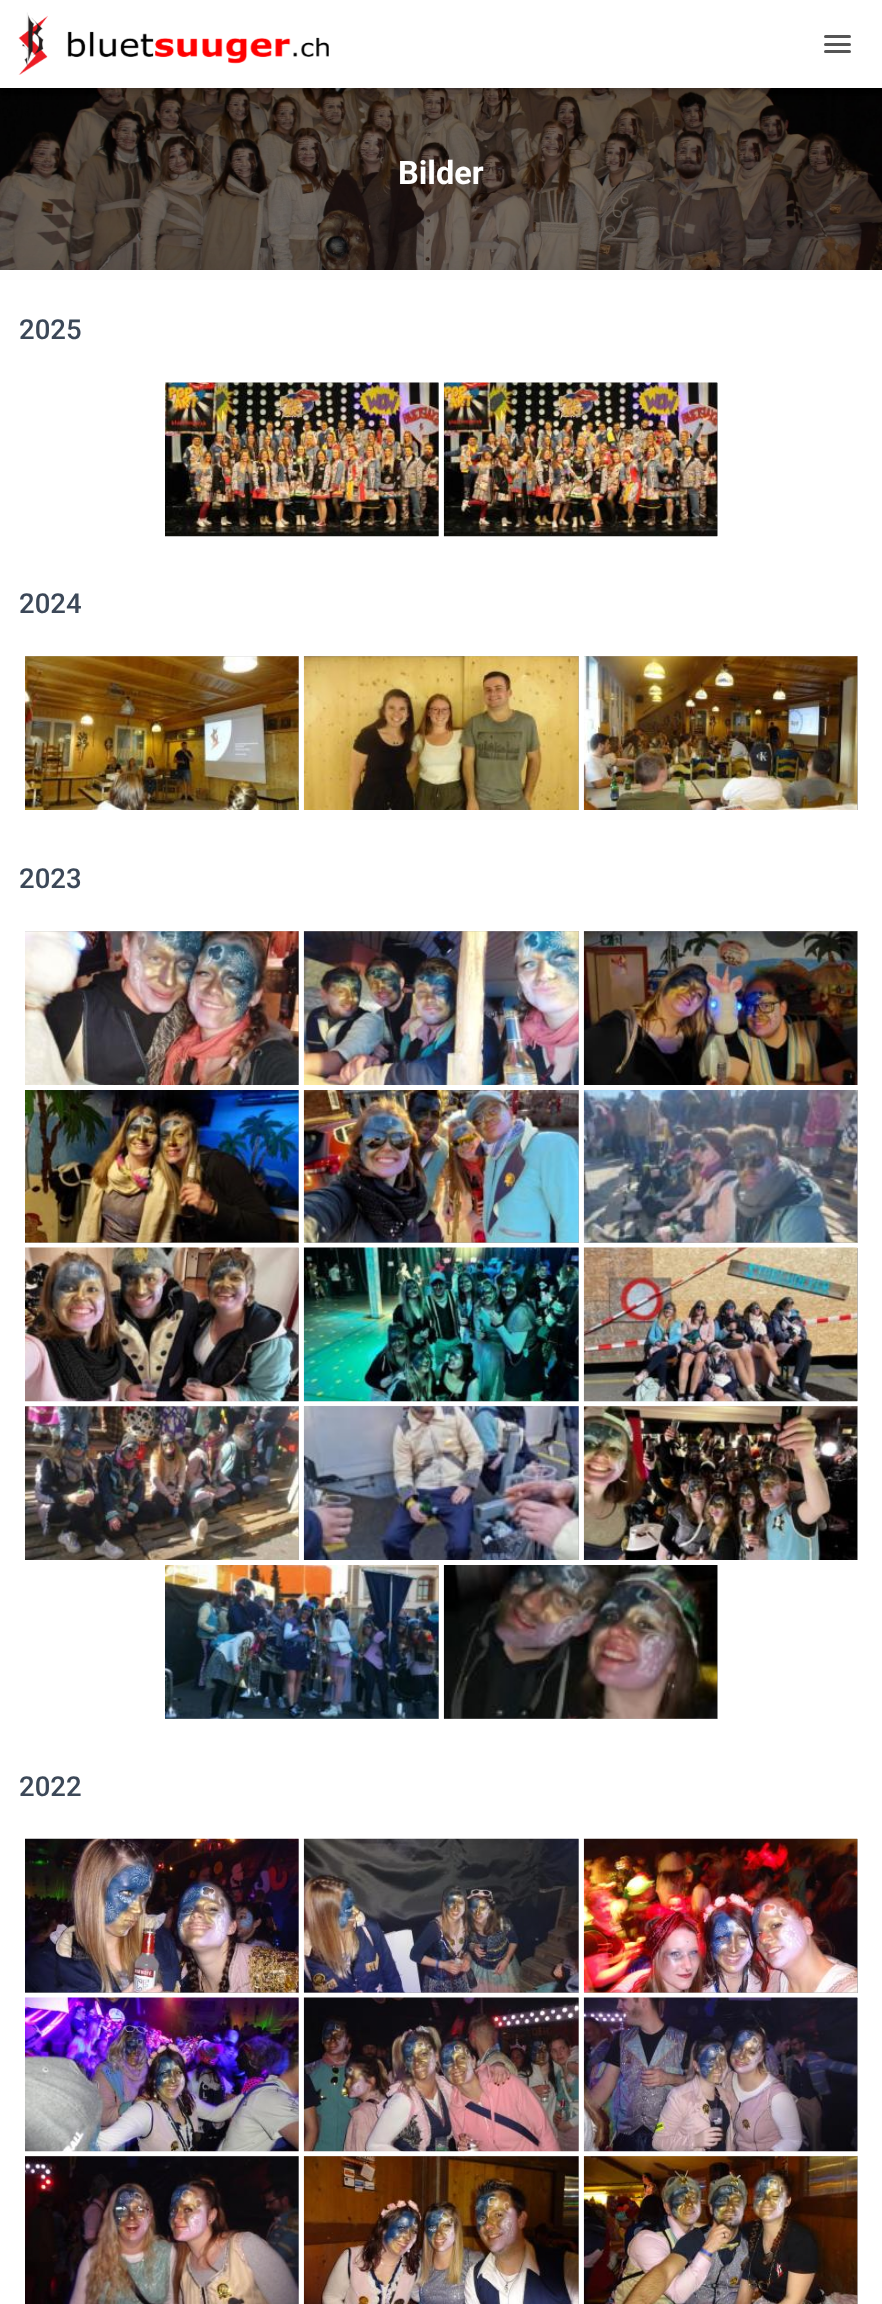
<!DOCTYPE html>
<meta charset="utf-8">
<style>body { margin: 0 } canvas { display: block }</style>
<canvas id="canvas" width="882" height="2304"></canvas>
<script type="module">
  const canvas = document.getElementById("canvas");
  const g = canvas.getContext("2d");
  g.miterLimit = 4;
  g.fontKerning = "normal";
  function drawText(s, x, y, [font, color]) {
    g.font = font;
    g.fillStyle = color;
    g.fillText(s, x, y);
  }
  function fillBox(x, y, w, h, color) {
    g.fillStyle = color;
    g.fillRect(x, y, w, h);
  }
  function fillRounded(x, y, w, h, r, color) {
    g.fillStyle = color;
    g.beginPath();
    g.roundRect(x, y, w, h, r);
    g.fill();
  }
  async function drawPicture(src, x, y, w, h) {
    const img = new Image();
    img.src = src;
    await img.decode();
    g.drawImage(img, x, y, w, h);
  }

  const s1 = ["bold 32.5px Roboto", "#FFFFFF"];
  const s2 = ["500 27.5px Roboto", "#3C4858"];

  fillBox(0, 0, 882, 2304, "#FFFFFF");
  await drawPicture("pic2.png", 0, 88, 882, 182);
  g.fillStyle = "rgba(0, 0, 0, 0.1)";
  g.filter = "blur(3px)";
  g.beginPath();
  g.rect(3, 8, 877, 82);
  g.fill();
  g.filter = "none";
  g.fillStyle = "rgba(0, 0, 0, 0.12)";
  g.filter = "blur(6px)";
  g.beginPath();
  g.rect(0, 1, 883, 88);
  g.fill();
  g.filter = "none";
  g.fillStyle = "rgba(0, 0, 0, 0.42)";
  g.filter = "blur(6px)";
  g.beginPath();
  g.rect(8, 9, 867, 72);
  g.fill();
  g.filter = "none";
  fillBox(0, 0, 882, 88, "#FFFFFF");
  await drawPicture("pic1.png", 18, 12, 311, 63);
  fillRounded(824, 35, 27, 3, 1.5, "#555555");
  fillRounded(824, 43, 27, 3, 1.5, "#555555");
  fillRounded(824, 50, 27, 3, 1.5, "#555555");
  drawText("Bilder", 398, 184, s1);
  g.fillStyle = "rgba(0, 0, 0, 0.12)";
  g.filter = "blur(19px)";
  g.beginPath();
  g.rect(-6, 271, 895, 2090);
  g.fill();
  g.filter = "none";
  fillBox(0, 270, 882, 2034, "#FFFFFF");
  drawText("2025", 19, 339, s2);
  fillBox(438, 383, 1, 153, "#B3B3B3");
  await drawPicture("pic3.png", 165, 382, 274, 155);
  fillBox(717, 383, 1, 153, "#B3B3B3");
  await drawPicture("pic4.png", 443, 382, 275, 155);
  drawText("2024", 19, 613, s2);
  fillBox(25, 656, 274, 154, "#B3B3B3");
  await drawPicture("pic5.png", 25, 656, 274, 154);
  fillBox(304, 656, 275, 154, "#B3B3B3");
  await drawPicture("pic6.png", 303, 656, 276, 154);
  fillBox(584, 656, 274, 154, "#B3B3B3");
  await drawPicture("pic7.png", 583, 656, 275, 154);
  drawText("2023", 19, 888, s2);
  fillBox(25, 931, 274, 154, "#B3B3B3");
  await drawPicture("pic8.png", 25, 931, 274, 154);
  fillBox(304, 931, 275, 154, "#B3B3B3");
  await drawPicture("pic9.png", 303, 931, 276, 154);
  fillBox(584, 931, 274, 154, "#B3B3B3");
  await drawPicture("pic10.png", 583, 931, 275, 154);
  fillBox(25, 1090, 274, 153, "#B3B3B3");
  await drawPicture("pic11.png", 25, 1090, 274, 153);
  fillBox(304, 1090, 275, 153, "#B3B3B3");
  await drawPicture("pic12.png", 303, 1090, 276, 153);
  fillBox(584, 1090, 274, 153, "#B3B3B3");
  await drawPicture("pic13.png", 583, 1090, 275, 153);
  fillBox(298, 1248, 1, 153, "#B3B3B3");
  await drawPicture("pic14.png", 25, 1247, 274, 155);
  fillBox(578, 1248, 1, 153, "#B3B3B3");
  await drawPicture("pic15.png", 303, 1247, 276, 155);
  fillBox(857, 1248, 1, 153, "#B3B3B3");
  await drawPicture("pic16.png", 583, 1247, 275, 155);
  fillBox(25, 1406, 274, 154, "#B3B3B3");
  await drawPicture("pic17.png", 25, 1406, 274, 154);
  fillBox(304, 1406, 275, 154, "#B3B3B3");
  await drawPicture("pic18.png", 303, 1406, 276, 154);
  fillBox(584, 1406, 274, 154, "#B3B3B3");
  await drawPicture("pic19.png", 583, 1406, 275, 154);
  fillBox(165, 1565, 274, 154, "#B3B3B3");
  await drawPicture("pic20.png", 165, 1565, 274, 154);
  fillBox(444, 1565, 274, 154, "#B3B3B3");
  await drawPicture("pic21.png", 443, 1565, 275, 154);
  drawText("2022", 19, 1796, s2);
  fillBox(25, 1839, 274, 154, "#B3B3B3");
  await drawPicture("pic22.png", 25, 1838, 274, 155);
  fillBox(304, 1839, 275, 154, "#B3B3B3");
  await drawPicture("pic23.png", 303, 1838, 276, 155);
  fillBox(584, 1839, 274, 154, "#B3B3B3");
  await drawPicture("pic24.png", 583, 1838, 275, 155);
  fillBox(298, 1998, 1, 153, "#B3B3B3");
  await drawPicture("pic25.png", 25, 1997, 274, 155);
  fillBox(578, 1998, 1, 153, "#B3B3B3");
  await drawPicture("pic26.png", 303, 1997, 276, 155);
  fillBox(857, 1998, 1, 153, "#B3B3B3");
  await drawPicture("pic27.png", 583, 1997, 275, 155);
  fillBox(25, 2156, 274, 148, "#B3B3B3");
  await drawPicture("pic28.png", 25, 2156, 274, 148);
  fillBox(304, 2156, 275, 148, "#B3B3B3");
  await drawPicture("pic29.png", 303, 2156, 276, 148);
  fillBox(584, 2156, 274, 148, "#B3B3B3");
  await drawPicture("pic30.png", 583, 2156, 275, 148);
</script>
